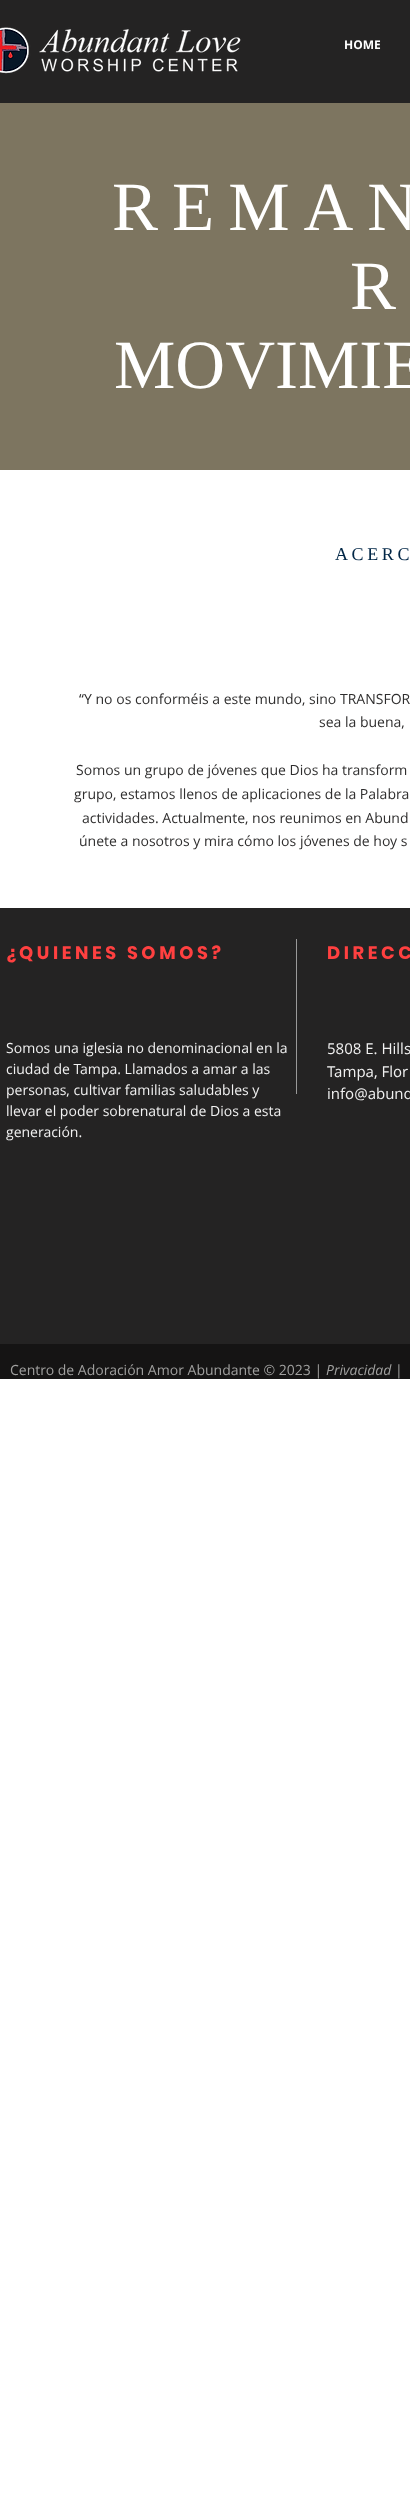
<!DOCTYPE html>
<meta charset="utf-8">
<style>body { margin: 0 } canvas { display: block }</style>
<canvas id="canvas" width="410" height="2516"></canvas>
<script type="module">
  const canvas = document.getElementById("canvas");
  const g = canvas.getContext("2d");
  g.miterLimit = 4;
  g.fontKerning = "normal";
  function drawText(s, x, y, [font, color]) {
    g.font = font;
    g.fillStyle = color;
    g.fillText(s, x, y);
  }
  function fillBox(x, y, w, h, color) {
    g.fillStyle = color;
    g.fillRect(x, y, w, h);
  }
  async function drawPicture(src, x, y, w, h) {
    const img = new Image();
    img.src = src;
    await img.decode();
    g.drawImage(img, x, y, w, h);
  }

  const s1 = ["bold 12px Open Sans", "#FFFFFF"];
  const s2 = ["69px Liberation Serif", "#FFFFFF"];
  const s3 = ["18px Liberation Serif", "#012646"];
  const s4 = ["14px Open Sans", "#2F2E2E"];
  const s5 = ["bold 18px Poppins", "#FF4040"];
  const s6 = ["14px Open Sans", "#F1F1F1"];
  const s7 = ["15px Open Sans", "#F1F1F1"];
  const s8 = ["14px Open Sans", "#A0A09F"];
  const s9 = ["italic 14px Open Sans", "#A0A09F"];

  fillBox(0, 0, 410, 2516, "#FFFFFF");
  fillBox(0, 0, 410, 103, "#242323");
  await drawPicture("pic1.png", 0, 27, 241, 47);
  drawText("HOME", 344, 49, s1);
  fillBox(0, 103, 410, 367, "#7D7560");
  g.letterSpacing = "14px";
  drawText("REMAN", 112, 230, s2);
  drawText("R", 350, 309, s2);
  g.letterSpacing = "0px";
  drawText("MOVIMIE", 114, 388, s2);
  g.letterSpacing = "3.6px";
  drawText("ACERC", 335, 560, s3);
  g.letterSpacing = "0px";
  drawText("“Y no os conforméis a este mundo, sino TRANSFOR", 79, 704, s4);
  drawText("sea la buena,", 319, 727, s4);
  drawText("Somos un grupo de jóvenes que Dios ha transform", 76, 775, s4);
  drawText("grupo, estamos llenos de aplicaciones de la Palabra", 74, 799, s4);
  drawText("actividades. Actualmente, nos reunimos en Abund", 82, 823, s4);
  drawText("únete a nosotros y mira cómo los jóvenes de hoy s", 79, 846, s4);
  fillBox(0, 908, 410, 436, "#242323");
  g.letterSpacing = "3.6px";
  drawText("¿QUIENES SOMOS?", 6, 959, s5);
  fillBox(296, 939, 1, 155, "#999999");
  drawText("DIRECC", 327, 959, s5);
  g.letterSpacing = "0px";
  drawText("Somos una iglesia no denominacional en la", 6, 1053, s6);
  drawText("ciudad de Tampa. Llamados a amar a las", 6, 1074, s6);
  drawText("personas, cultivar familias saludables y", 6, 1095, s6);
  drawText("llevar el poder sobrenatural de Dios a esta", 6, 1116, s6);
  drawText("generación.", 6, 1137, s6);
  drawText("5808 E. Hills", 327, 1054, s7);
  drawText("Tampa, Flor", 327, 1077, s7);
  drawText("info@abund", 327, 1099, s7);
  fillBox(0, 1344, 410, 35, "#151414");
  drawText("Centro de Adoración Amor Abundante © 2023 |", 10, 1375, s8);
  drawText("Privacidad", 326, 1375, s9);
  drawText("|", 395, 1375, s8);
</script>
